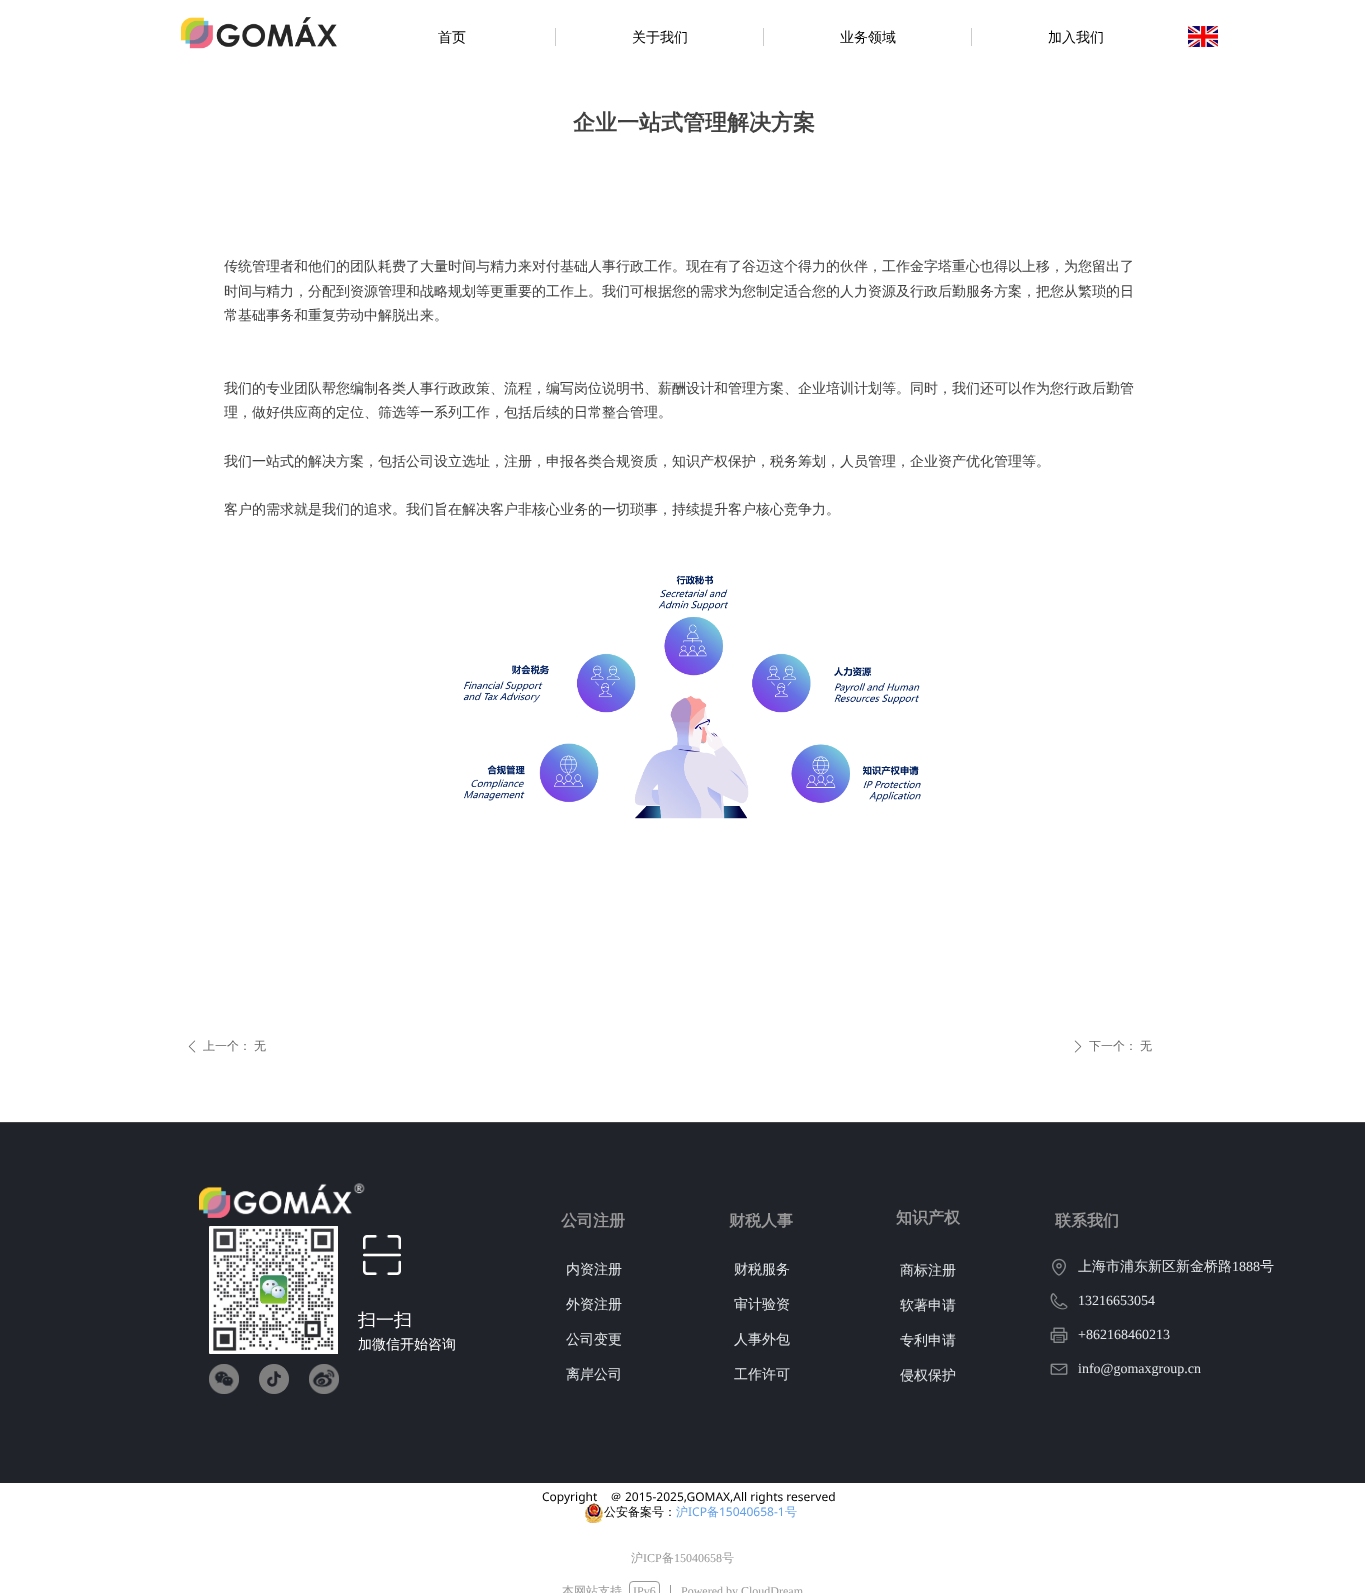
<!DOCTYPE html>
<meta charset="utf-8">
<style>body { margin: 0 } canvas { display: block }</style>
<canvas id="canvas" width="1365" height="1593"></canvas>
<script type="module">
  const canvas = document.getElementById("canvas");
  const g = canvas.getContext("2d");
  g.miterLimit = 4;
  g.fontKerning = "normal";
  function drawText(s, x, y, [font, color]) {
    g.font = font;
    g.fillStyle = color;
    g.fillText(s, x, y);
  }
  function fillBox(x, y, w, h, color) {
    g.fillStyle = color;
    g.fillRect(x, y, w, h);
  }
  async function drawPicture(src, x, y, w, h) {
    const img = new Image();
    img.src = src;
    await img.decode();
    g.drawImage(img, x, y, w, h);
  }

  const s1 = ["500 14px WenQuanYi Zen Hei", "#000000"];
  const s2 = ["bold 22px WenQuanYi Zen Hei", "#404040"];
  const s3 = ["500 14px WenQuanYi Zen Hei", "#404040"];
  const s4 = ["500 12px WenQuanYi Zen Hei", "#666666"];
  const s5 = ["bold 16px WenQuanYi Zen Hei", "#999999"];
  const s6 = ["500 14px WenQuanYi Zen Hei", "#E2E7E9"];
  const s7 = ["14px Liberation Serif", "#E2E7E9"];
  const s8 = ["500 18px WenQuanYi Zen Hei", "#FFFFFF"];
  const s9 = ["500 14px WenQuanYi Zen Hei", "#FFFFFF"];
  const s10 = ["12px Noto Sans", "#000000"];
  const s11 = ["500 12px WenQuanYi Zen Hei", "#000000"];
  const s12 = ["500 12px WenQuanYi Zen Hei", "#609EE9"];
  const s13 = ["12px Noto Sans", "#609EE9"];
  const s14 = ["500 12px WenQuanYi Zen Hei", "#999999"];
  const s15 = ["12px Liberation Serif", "#999999"];

  fillBox(0, 0, 1365, 1593, "#FFFFFF");
  await drawPicture("pic1.png", 181, 17, 156, 32);
  drawText("首页", 438, 42, s1);
  fillBox(555, 28, 1, 18, "#CCCCCC");
  drawText("关于我们", 632, 42, s1);
  fillBox(763, 28, 1, 18, "#CCCCCC");
  drawText("业务领域", 840, 42, s1);
  fillBox(971, 28, 1, 18, "#CCCCCC");
  drawText("加入我们", 1048, 42, s1);
  await drawPicture("pic2.png", 1188, 26, 30, 21);
  drawText("企业一站式管理解决方案", 573, 130, s2);
  drawText("传统管理者和他们的团队耗费了大量时间与精力来对付基础人事行政工作。现在有了谷迈这个得力的伙伴，工作金字塔重心也得以上移，为您留出了", 224, 271, s3);
  drawText("时间与精力，分配到资源管理和战略规划等更重要的工作上。我们可根据您的需求为您制定适合您的人力资源及行政后勤服务方案，把您从繁琐的日", 224, 296, s3);
  drawText("常基础事务和重复劳动中解脱出来。", 224, 320, s3);
  drawText("我们的专业团队帮您编制各类人事行政政策、流程，编写岗位说明书、薪酬设计和管理方案、企业培训计划等。同时，我们还可以作为您行政后勤管", 224, 393, s3);
  drawText("理，做好供应商的定位、筛选等一系列工作，包括后续的日常整合管理。", 224, 417, s3);
  drawText("我们一站式的解决方案，包括公司设立选址，注册，申报各类合规资质，知识产权保护，税务筹划，人员管理，企业资产优化管理等。", 224, 466, s3);
  drawText("客户的需求就是我们的追求。我们旨在解决客户非核心业务的一切琐事，持续提升客户核心竞争力。", 224, 514, s3);
  await drawPicture("pic3.png", 463, 575, 458, 244);
  await drawPicture("pic4.png", 188, 1040, 8, 13);
  drawText("上一个：", 203, 1050, s4);
  drawText("无", 254, 1050, s4);
  await drawPicture("pic5.png", 1074, 1040, 8, 13);
  drawText("下一个：", 1089, 1050, s4);
  drawText("无", 1140, 1050, s4);
  fillBox(0, 1122, 1365, 1, "#444444");
  fillBox(0, 1123, 1365, 360, "#20232A");
  await drawPicture("pic6.png", 209, 1226, 129, 128);
  await drawPicture("pic7.png", 363, 1235, 38, 40);
  await drawPicture("pic8.png", 199, 1183, 166, 35);
  await drawPicture("pic9.png", 209, 1364, 30, 30);
  await drawPicture("pic10.png", 259, 1364, 30, 30);
  await drawPicture("pic11.png", 309, 1364, 30, 30);
  drawText("公司注册", 561, 1226, s5);
  drawText("内资注册", 566, 1274, s6);
  drawText("外资注册", 566, 1309, s6);
  drawText("公司变更", 566, 1344, s6);
  drawText("离岸公司", 566, 1379, s6);
  g.save();
  g.beginPath();
  g.rect(729, 1213, 70, 19);
  g.clip();
  drawText("财税人事", 729, 1226, s5);
  g.restore();
  drawText("财税服务", 734, 1274, s6);
  drawText("审计验资", 734, 1309, s6);
  drawText("人事外包", 734, 1344, s6);
  drawText("工作许可", 734, 1379, s6);
  drawText("知识产权", 896, 1223, s5);
  drawText("商标注册", 900, 1275, s6);
  drawText("软著申请", 900, 1310, s6);
  drawText("专利申请", 900, 1345, s6);
  drawText("侵权保护", 900, 1380, s6);
  drawText("联系我们", 1055, 1226, s5);
  await drawPicture("pic12.png", 1052, 1258, 14, 18);
  drawText("上海市浦东新区新金桥路", 1078, 1271, s6);
  drawText("1888", 1232, 1271, s7);
  drawText("号", 1260, 1271, s6);
  await drawPicture("pic13.png", 1050, 1293, 18, 17);
  drawText("13216653054", 1078, 1305, s7);
  await drawPicture("pic14.png", 1050, 1327, 18, 16);
  drawText("+862168460213", 1078, 1339, s7);
  await drawPicture("pic15.png", 1050, 1363, 18, 12);
  drawText("info@gomaxgroup.cn", 1078, 1373, s7);
  drawText("扫一扫", 358, 1326, s8);
  drawText("加微信开始咨询", 358, 1349, s9);
  drawText("Copyright", 542, 1501, s10);
  drawText("＠", 610, 1501, s11);
  drawText("2015-2025,GOMAX,All rights reserved", 625, 1501, s10);
  await drawPicture("pic16.png", 585, 1503, 18, 20);
  drawText("公安备案号：", 604, 1516, s11);
  drawText("沪", 676, 1516, s12);
  drawText("ICP", 688, 1516, s13);
  drawText("备", 707, 1516, s12);
  drawText("15040658-1", 719, 1516, s13);
  drawText("号", 785, 1516, s12);
  drawText("沪", 631, 1562, s14);
  drawText("ICP", 643, 1562, s15);
  drawText("备", 662, 1562, s14);
  drawText("15040658", 674, 1562, s15);
  drawText("号", 722, 1562, s14);
  drawText("本网站支持", 562, 1595, s14);
  g.beginPath();
  g.roundRect(629.5, 1581.5, 30, 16, 3.5);
  g.strokeStyle = "#989898";
  g.stroke();
  drawText("IPv6", 633, 1595, s15);
  fillBox(670, 1585, 1, 8, "#989898");
  drawText("Powered by CloudDream", 681, 1595, s15);
</script>
